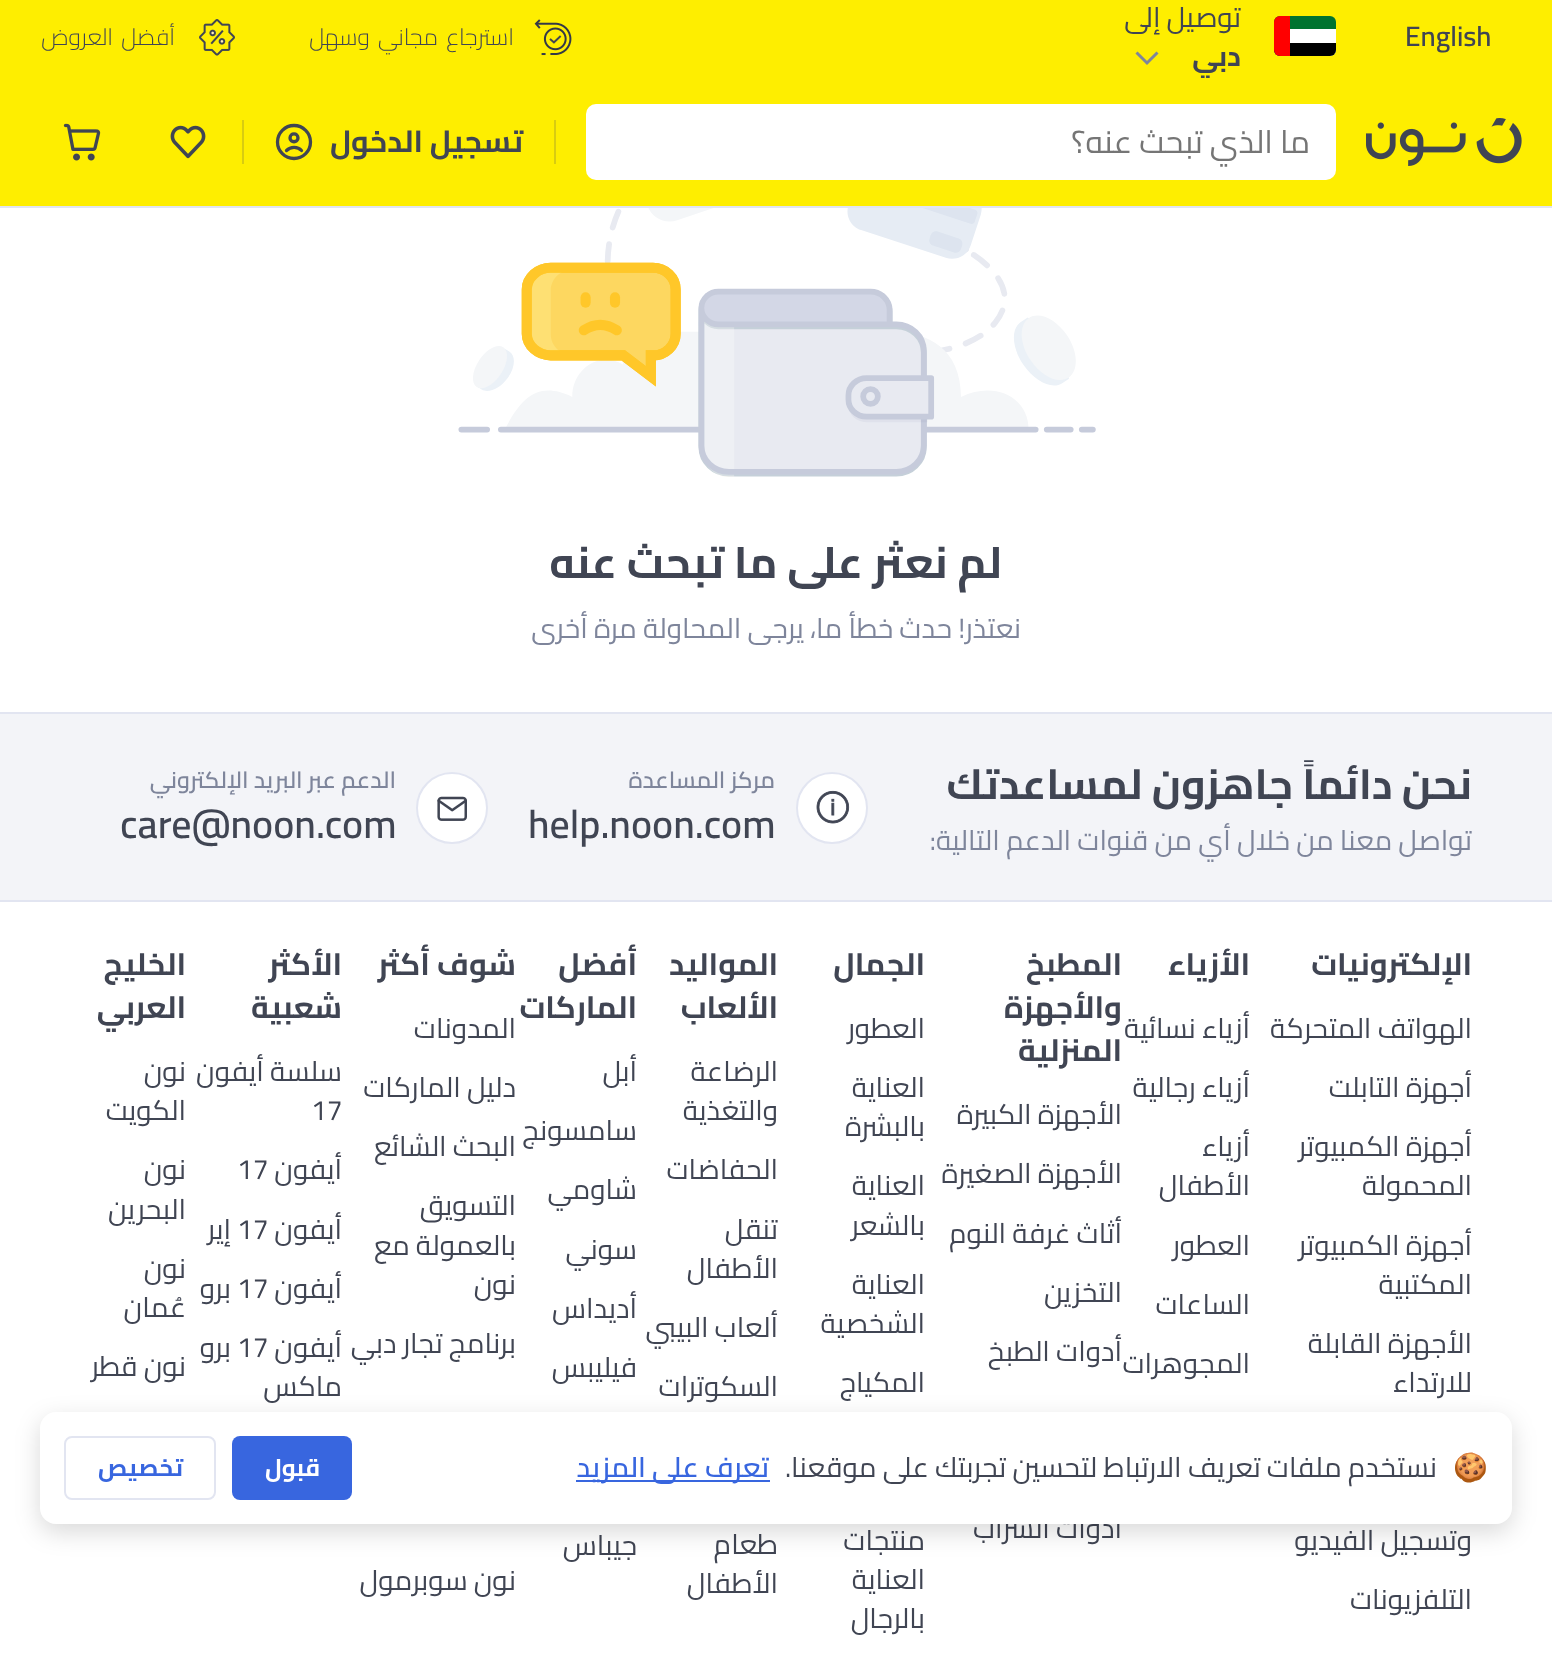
<!DOCTYPE html>
<meta charset="utf-8">
<style>body { margin: 0 } canvas { display: block }</style>
<canvas id="canvas" width="1552" height="1664"></canvas>
<script type="module">
  const canvas = document.getElementById("canvas");
  const g = canvas.getContext("2d");
  g.miterLimit = 4;
  g.fontKerning = "normal";
  function drawText(s, x, y, [font, color]) {
    g.font = font;
    g.fillStyle = color;
    g.fillText(s, x, y);
  }
  function fillBox(x, y, w, h, color) {
    g.fillStyle = color;
    g.fillRect(x, y, w, h);
  }
  function fillRounded(x, y, w, h, r, color) {
    g.fillStyle = color;
    g.beginPath();
    g.roundRect(x, y, w, h, r);
    g.fill();
  }
  async function drawPicture(src, x, y, w, h) {
    const img = new Image();
    img.src = src;
    await img.decode();
    g.drawImage(img, x, y, w, h);
  }

  const s1 = ["600 28px Cairo", "#404553"];
  const s2 = ["28px Cairo", "#404553"];
  const s3 = ["bold 28px Cairo", "#404553"];
  const s4 = ["300 23.25px Cairo", "#404553"];
  const s5 = ["32px Cairo", "#757575"];
  const s6 = ["bold 30.25px Cairo", "#404553"];
  const s7 = ["bold 44px Cairo", "#404553"];
  const s8 = ["28px Cairo", "#7E859B"];
  const s9 = ["bold 42px Cairo", "#404553"];
  const s10 = ["600 23.25px Cairo", "#7E859B"];
  const s11 = ["600 39.75px Cairo", "#404553"];
  const s12 = ["bold 30.75px Cairo", "#404553"];
  const s13 = ["28px Noto Color Emoji", "#404553"];
  const s14 = ["600 28px Cairo", "#3866DF"];
  const s15 = ["bold 24px Cairo", "#FFFFFF"];
  const s16 = ["bold 24px Cairo", "#3866DF"];

  fillBox(0, 0, 1552, 1664, "#FFFFFF");
  fillBox(0, 0, 1552, 206, "#FEEE00");
  drawText("English", 1405, 46, s1);
  fillRounded(1274, 16, 62, 40, 6, "#00732F");
  g.fillStyle = "#FFFFFF";
  g.beginPath();
  g.roundRect(1274, 29, 62, 27, [0, 0, 6, 6]);
  g.fill();
  g.fillStyle = "#000000";
  g.beginPath();
  g.roundRect(1274, 43, 62, 13, [0, 0, 6, 6]);
  g.fill();
  g.fillStyle = "#FF0000";
  g.beginPath();
  g.roundRect(1274, 16, 16, 40, [6, 0, 0, 6]);
  g.fill();
  g.direction = "rtl";
  drawText("توصيل إلى", 1241, 27, s2);
  g.save();
  g.beginPath();
  g.rect(1192, 38, 50, 40);
  g.clip();
  drawText("دبي", 1241, 66, s3);
  g.restore();
  g.beginPath();
  g.moveTo(1157.5, 52.5);
  g.lineTo(1147, 63);
  g.lineTo(1136.5, 52.5);
  g.strokeStyle = "#7E859B";
  g.lineWidth = 3;
  g.stroke();
  await drawPicture("pic1.png", 534, 19, 38, 37);
  g.letterSpacing = "1.2px";
  g.wordSpacing = "2px";
  drawText("استرجاع مجاني وسهل", 514, 45, s4);
  await drawPicture("pic2.png", 199, 19, 36, 37);
  drawText("أفضل العروض", 175, 45, s4);
  await drawPicture("pic3.png", 1366, 118, 156, 48);
  fillRounded(586, 104, 750, 76, 10, "#FFFFFF");
  g.letterSpacing = "0px";
  g.wordSpacing = "0px";
  drawText("ما الذي تبحث عنه؟", 1310, 153, s5);
  fillBox(554, 120, 2, 44, "#D8CC11");
  drawText("تسجيل الدخول", 523, 152, s6);
  g.beginPath();
  g.arc(294, 142, 16.5, 0, Math.PI * 2);
  g.strokeStyle = "#404553";
  g.lineWidth = 3.3;
  g.stroke();
  g.beginPath();
  g.moveTo(286.5, 150.5);
  g.bezierCurveTo(290.5, 146.5, 297.5, 146, 301.5, 150.5);
  g.moveTo(298, 138);
  g.bezierCurveTo(298, 143, 290, 143, 290, 138);
  g.bezierCurveTo(290, 132.5, 298, 132.5, 298, 138);
  g.closePath();
  g.lineCap = "round";
  g.stroke();
  fillBox(242, 120, 2, 44, "#D8CC11");
  await drawPicture("pic4.png", 170, 125, 36, 34);
  await drawPicture("pic5.png", 63, 123, 38, 38);
  fillBox(0, 206, 1552, 2, "#E2E5F1");
  await drawPicture("pic6.png", 458, 208, 638, 269);
  drawText("لم نعثر على ما تبحث عنه", 1002, 578, s7);
  drawText("نعتذر! حدث خطأ ما، يرجى المحاولة مرة أخرى", 1021, 638, s8);
  fillBox(0, 714, 1552, 186, "#F3F4F8");
  fillBox(0, 712, 1552, 2, "#E2E5F1");
  drawText("نحن دائماً جاهزون لمساعدتك", 1472, 799, s9);
  drawText("تواصل معنا من خلال أي من قنوات الدعم التالية:", 1472, 850, s8);
  g.fillStyle = "#FFFFFF";
  g.beginPath();
  g.arc(832, 808, 35, 0, Math.PI * 2);
  g.fill();
  g.strokeStyle = "#E2E5F1";
  g.lineWidth = 2;
  g.stroke();
  await drawPicture("pic7.png", 816, 790, 34, 34);
  drawText("مركز المساعدة", 775, 788, s10);
  g.direction = "ltr";
  drawText("help.noon.com", 528, 838, s11);
  g.fillStyle = "#FFFFFF";
  g.beginPath();
  g.arc(452, 808, 35, 0, Math.PI * 2);
  g.fill();
  g.stroke();
  await drawPicture("pic8.png", 437, 796, 30, 25);
  g.direction = "rtl";
  drawText("الدعم عبر البريد الإلكتروني", 396, 788, s10);
  g.direction = "ltr";
  drawText("care@noon.com", 120, 838, s11);
  fillBox(0, 900, 1552, 2, "#E2E5F1");
  g.direction = "rtl";
  drawText("الإلكترونيات", 1472, 975, s12);
  drawText("الهواتف المتحركة", 1472, 1038, s2);
  drawText("أجهزة التابلت", 1472, 1097, s2);
  drawText("أجهزة الكمبيوتر", 1472, 1156, s2);
  drawText("المحمولة", 1472, 1195, s2);
  drawText("أجهزة الكمبيوتر", 1472, 1255, s2);
  drawText("المكتبية", 1472, 1294, s2);
  drawText("الأجهزة القابلة", 1472, 1353, s2);
  drawText("للارتداء", 1472, 1392, s2);
  drawText("وتسجيل الفيديو", 1472, 1550, s2);
  drawText("التلفزيونات", 1472, 1609, s2);
  drawText("الأزياء", 1250, 975, s12);
  drawText("أزياء نسائية", 1250, 1038, s2);
  drawText("أزياء رجالية", 1250, 1097, s2);
  drawText("أزياء", 1250, 1156, s2);
  drawText("الأطفال", 1250, 1195, s2);
  drawText("العطور", 1250, 1255, s2);
  drawText("الساعات", 1250, 1314, s2);
  drawText("المجوهرات", 1250, 1373, s2);
  drawText("المطبخ", 1122, 975, s12);
  drawText("والأجهزة", 1122, 1018, s12);
  drawText("المنزلية", 1122, 1061, s12);
  drawText("الأجهزة الكبيرة", 1122, 1124, s2);
  drawText("الأجهزة الصغيرة", 1122, 1183, s2);
  drawText("أثاث غرفة النوم", 1122, 1243, s2);
  drawText("التخزين", 1122, 1302, s2);
  drawText("أدوات الطبخ", 1122, 1361, s2);
  drawText("أدوات الشراب", 1122, 1538, s2);
  drawText("الجمال", 925, 975, s12);
  drawText("العطور", 925, 1038, s2);
  drawText("العناية", 925, 1097, s2);
  drawText("بالبشرة", 925, 1136, s2);
  drawText("العناية", 925, 1195, s2);
  drawText("بالشعر", 925, 1235, s2);
  drawText("العناية", 925, 1294, s2);
  drawText("الشخصية", 925, 1333, s2);
  drawText("المكياج", 925, 1392, s2);
  drawText("منتجات", 925, 1550, s2);
  drawText("العناية", 925, 1589, s2);
  drawText("بالرجال", 925, 1628, s2);
  drawText("المواليد", 778, 975, s12);
  drawText("الألعاب", 778, 1018, s12);
  drawText("الرضاعة", 778, 1081, s2);
  drawText("والتغذية", 778, 1120, s2);
  drawText("الحفاضات", 778, 1179, s2);
  drawText("تنقل", 778, 1239, s2);
  drawText("الأطفال", 778, 1278, s2);
  drawText("ألعاب البيبي", 778, 1337, s2);
  drawText("السكوترات", 778, 1396, s2);
  drawText("طعام", 778, 1554, s2);
  drawText("الأطفال", 778, 1593, s2);
  drawText("أفضل", 637, 975, s12);
  drawText("الماركات", 637, 1018, s12);
  drawText("أبل", 637, 1081, s2);
  drawText("سامسونج", 637, 1140, s2);
  drawText("شاومي", 637, 1199, s2);
  drawText("سوني", 637, 1259, s2);
  drawText("أديداس", 637, 1318, s2);
  drawText("فيليبس", 637, 1377, s2);
  drawText("جيباس", 637, 1555, s2);
  drawText("شوف أكثر", 516, 975, s12);
  drawText("المدونات", 516, 1038, s2);
  drawText("دليل الماركات", 516, 1097, s2);
  drawText("البحث الشائع", 516, 1156, s2);
  drawText("التسويق", 516, 1215, s2);
  drawText("بالعمولة مع", 516, 1255, s2);
  drawText("نون", 516, 1294, s2);
  drawText("برنامج تجار دبي", 516, 1353, s2);
  drawText("نون سوبرمول", 516, 1590, s2);
  drawText("الأكثر", 342, 975, s12);
  drawText("شعبية", 342, 1018, s12);
  drawText("سلسة أيفون", 342, 1081, s2);
  g.direction = "ltr";
  drawText("17", 311, 1120, s2);
  g.direction = "rtl";
  drawText("أيفون", 342, 1179, s2);
  g.direction = "ltr";
  drawText("17", 237, 1179, s2);
  g.direction = "rtl";
  drawText("أيفون", 342, 1239, s2);
  g.direction = "ltr";
  drawText("17", 237, 1239, s2);
  g.direction = "rtl";
  drawText("إير", 231, 1239, s2);
  drawText("أيفون", 342, 1298, s2);
  g.direction = "ltr";
  drawText("17", 237, 1298, s2);
  g.direction = "rtl";
  drawText("برو", 231, 1298, s2);
  drawText("أيفون", 342, 1357, s2);
  g.direction = "ltr";
  drawText("17", 237, 1357, s2);
  g.direction = "rtl";
  drawText("برو", 231, 1357, s2);
  drawText("ماكس", 342, 1396, s2);
  drawText("الخليج", 186, 975, s12);
  drawText("العربي", 186, 1018, s12);
  drawText("نون", 186, 1081, s2);
  drawText("الكويت", 186, 1120, s2);
  drawText("نون", 186, 1179, s2);
  drawText("البحرين", 186, 1219, s2);
  drawText("نون", 186, 1278, s2);
  drawText("عُمان", 186, 1317, s2);
  drawText("نون قطر", 186, 1376, s2);
  g.fillStyle = "rgba(0, 0, 0, 0.15)";
  g.filter = "blur(12px)";
  g.beginPath();
  g.roundRect(40, 1420, 1472, 112, 16);
  g.fill();
  g.filter = "none";
  fillRounded(40, 1412, 1472, 112, 16, "#FFFFFF");
  g.direction = "ltr";
  drawText("🍪", 1453, 1477, s13);
  g.direction = "rtl";
  drawText("نستخدم ملفات تعريف الارتباط لتحسين تجربتك على موقعنا.", 1437, 1477, s2);
  fillBox(576, 1480, 194, 2, "#3866DF");
  drawText("تعرف على المزيد", 769, 1477, s14);
  fillRounded(232, 1436, 120, 64, 8, "#3866DF");
  drawText("قبول", 320, 1476, s15);
  g.beginPath();
  g.roundRect(65, 1437, 150, 62, 7);
  g.stroke();
  drawText("تخصيص", 183, 1476, s16);
</script>
